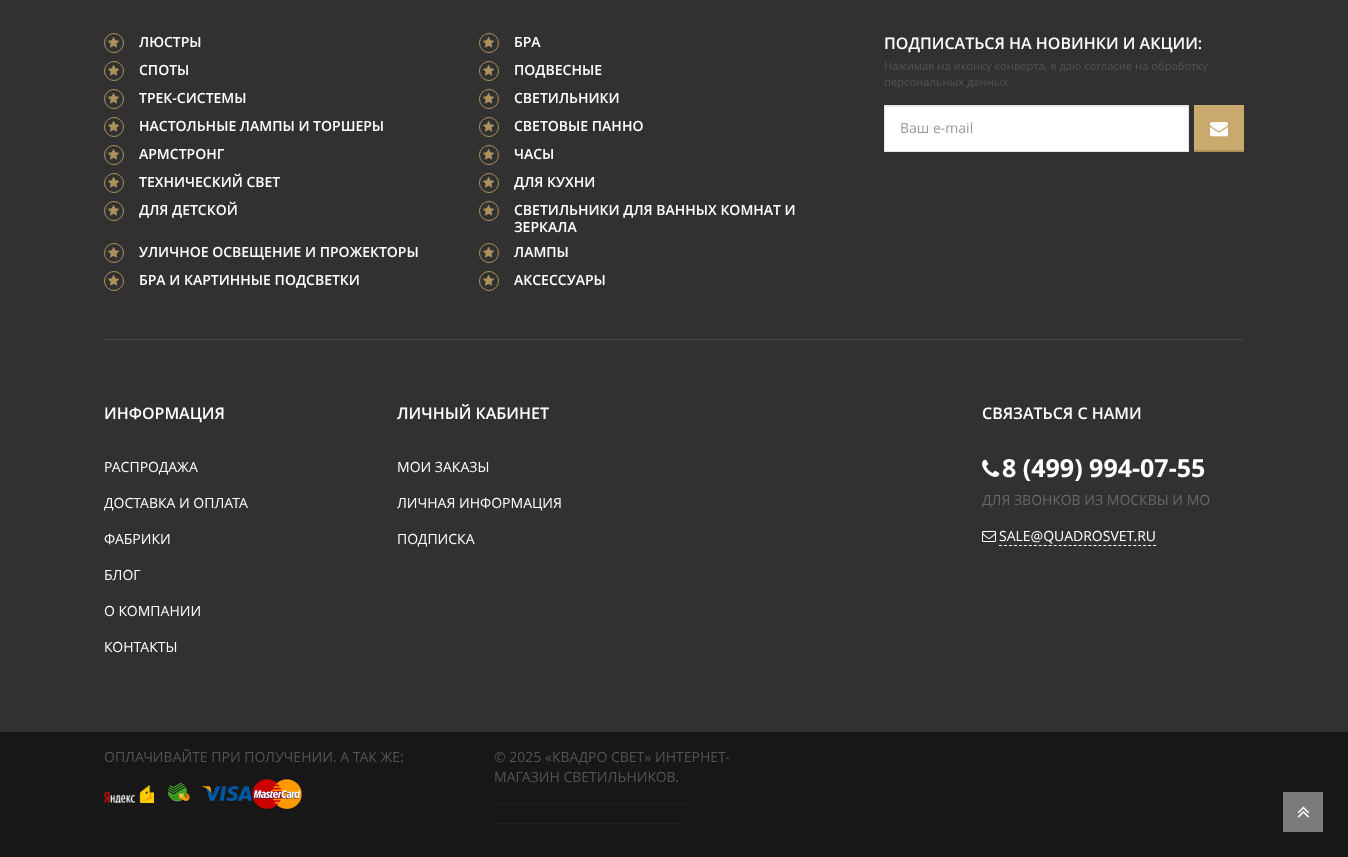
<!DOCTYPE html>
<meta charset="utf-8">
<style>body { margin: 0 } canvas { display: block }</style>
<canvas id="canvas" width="1348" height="857"></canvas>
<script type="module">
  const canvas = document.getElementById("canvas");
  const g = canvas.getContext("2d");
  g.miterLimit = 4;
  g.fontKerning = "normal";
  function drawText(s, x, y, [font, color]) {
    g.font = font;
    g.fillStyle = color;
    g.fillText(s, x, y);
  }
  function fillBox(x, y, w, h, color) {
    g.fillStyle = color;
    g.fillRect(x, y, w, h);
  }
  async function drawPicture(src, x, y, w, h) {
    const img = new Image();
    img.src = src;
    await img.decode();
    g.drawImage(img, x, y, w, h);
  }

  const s1 = ["600 14px Open Sans", "#FFFFFF"];
  const s2 = ["600 16px Open Sans", "#FFFFFF"];
  const s3 = ["11.2px Open Sans", "#555454"];
  const s4 = ["14px Open Sans", "#999999"];
  const s5 = ["14px Open Sans", "#FFFFFF"];
  const s6 = ["bold 25px Open Sans", "#FFFFFF"];
  const s7 = ["14px Open Sans", "#696868"];
  const s8 = ["14px Open Sans", "#555454"];

  fillBox(0, 0, 1348, 857, "#313131");
  g.beginPath();
  g.arc(114, 43, 9.5, 0, Math.PI * 2);
  g.strokeStyle = "#AD915C";
  g.stroke();
  await drawPicture("pic1.png", 108, 37, 11, 11);
  drawText("ЛЮСТРЫ", 139, 47, s1);
  g.beginPath();
  g.arc(489, 43, 9.5, 0, Math.PI * 2);
  g.stroke();
  await drawPicture("pic1.png", 483, 37, 11, 11);
  drawText("БРА", 514, 47, s1);
  g.beginPath();
  g.arc(114, 71, 9.5, 0, Math.PI * 2);
  g.stroke();
  await drawPicture("pic1.png", 108, 65, 11, 11);
  drawText("СПОТЫ", 139, 75, s1);
  g.beginPath();
  g.arc(489, 71, 9.5, 0, Math.PI * 2);
  g.stroke();
  await drawPicture("pic1.png", 483, 65, 11, 11);
  drawText("ПОДВЕСНЫЕ", 514, 75, s1);
  g.beginPath();
  g.arc(114, 99, 9.5, 0, Math.PI * 2);
  g.stroke();
  await drawPicture("pic1.png", 108, 93, 11, 11);
  drawText("ТРЕК-СИСТЕМЫ", 139, 103, s1);
  g.beginPath();
  g.arc(489, 99, 9.5, 0, Math.PI * 2);
  g.stroke();
  await drawPicture("pic1.png", 483, 93, 11, 11);
  drawText("СВЕТИЛЬНИКИ", 514, 103, s1);
  g.beginPath();
  g.arc(114, 127, 9.5, 0, Math.PI * 2);
  g.stroke();
  await drawPicture("pic1.png", 108, 121, 11, 11);
  drawText("НАСТОЛЬНЫЕ ЛАМПЫ И ТОРШЕРЫ", 139, 131, s1);
  g.beginPath();
  g.arc(489, 127, 9.5, 0, Math.PI * 2);
  g.stroke();
  await drawPicture("pic1.png", 483, 121, 11, 11);
  drawText("СВЕТОВЫЕ ПАННО", 514, 131, s1);
  g.beginPath();
  g.arc(114, 155, 9.5, 0, Math.PI * 2);
  g.stroke();
  await drawPicture("pic1.png", 108, 149, 11, 11);
  drawText("АРМСТРОНГ", 139, 159, s1);
  g.beginPath();
  g.arc(489, 155, 9.5, 0, Math.PI * 2);
  g.stroke();
  await drawPicture("pic1.png", 483, 149, 11, 11);
  drawText("ЧАСЫ", 514, 159, s1);
  g.beginPath();
  g.arc(114, 183, 9.5, 0, Math.PI * 2);
  g.stroke();
  await drawPicture("pic1.png", 108, 177, 11, 11);
  drawText("ТЕХНИЧЕСКИЙ СВЕТ", 139, 187, s1);
  g.beginPath();
  g.arc(489, 183, 9.5, 0, Math.PI * 2);
  g.stroke();
  await drawPicture("pic1.png", 483, 177, 11, 11);
  drawText("ДЛЯ КУХНИ", 514, 187, s1);
  g.beginPath();
  g.arc(114, 211, 9.5, 0, Math.PI * 2);
  g.stroke();
  await drawPicture("pic1.png", 108, 205, 11, 11);
  drawText("ДЛЯ ДЕТСКОЙ", 139, 215, s1);
  g.beginPath();
  g.arc(489, 211, 9.5, 0, Math.PI * 2);
  g.stroke();
  await drawPicture("pic1.png", 483, 205, 11, 11);
  drawText("СВЕТИЛЬНИКИ ДЛЯ ВАННЫХ КОМНАТ И", 514, 215, s1);
  drawText("ЗЕРКАЛА", 514, 232, s1);
  g.beginPath();
  g.arc(114, 253, 9.5, 0, Math.PI * 2);
  g.stroke();
  await drawPicture("pic1.png", 108, 247, 11, 11);
  drawText("УЛИЧНОЕ ОСВЕЩЕНИЕ И ПРОЖЕКТОРЫ", 139, 257, s1);
  g.beginPath();
  g.arc(489, 253, 9.5, 0, Math.PI * 2);
  g.stroke();
  await drawPicture("pic1.png", 483, 247, 11, 11);
  drawText("ЛАМПЫ", 514, 257, s1);
  g.beginPath();
  g.arc(114, 281, 9.5, 0, Math.PI * 2);
  g.stroke();
  await drawPicture("pic1.png", 108, 275, 11, 11);
  drawText("БРА И КАРТИННЫЕ ПОДСВЕТКИ", 139, 285, s1);
  g.beginPath();
  g.arc(489, 281, 9.5, 0, Math.PI * 2);
  g.stroke();
  await drawPicture("pic1.png", 483, 275, 11, 11);
  drawText("АКСЕССУАРЫ", 514, 285, s1);
  drawText("ПОДПИСАТЬСЯ НА НОВИНКИ И АКЦИИ:", 884, 49, s2);
  drawText("Нажимая на иконку конверта, я даю согласие на обработку", 884, 70, s3);
  drawText("персональных данных.", 884, 86, s3);
  fillBox(885, 107, 303, 44, "#FFFFFF");
  fillBox(885, 106, 303, 1, "#ECECEC");
  g.strokeStyle = "#E6E4E4";
  g.strokeRect(884.5, 105.5, 304, 46);
  drawText("Ваш e-mail", 900, 133, s4);
  fillBox(1194, 105, 50, 45, "#C9A96E");
  fillBox(1194, 150, 50, 2, "#AD915C");
  await drawPicture("pic2.png", 1210, 122, 18, 15);
  fillBox(104, 339, 1140, 1, "#464646");
  drawText("ИНФОРМАЦИЯ", 104, 419, s2);
  drawText("РАСПРОДАЖА", 104, 472, s5);
  drawText("ДОСТАВКА И ОПЛАТА", 104, 508, s5);
  drawText("ФАБРИКИ", 104, 544, s5);
  drawText("БЛОГ", 104, 580, s5);
  drawText("О КОМПАНИИ", 104, 616, s5);
  drawText("КОНТАКТЫ", 104, 652, s5);
  drawText("ЛИЧНЫЙ КАБИНЕТ", 397, 419, s2);
  drawText("МОИ ЗАКАЗЫ", 397, 472, s5);
  drawText("ЛИЧНАЯ ИНФОРМАЦИЯ", 397, 508, s5);
  drawText("ПОДПИСКА", 397, 544, s5);
  drawText("СВЯЗАТЬСЯ С НАМИ", 982, 419, s2);
  await drawPicture("pic3.png", 982, 459, 18, 18);
  drawText("8 (499) 994-07-55", 1002, 477, s6);
  drawText("ДЛЯ ЗВОНКОВ ИЗ МОСКВЫ И МО", 982, 505, s7);
  await drawPicture("pic4.png", 982, 531, 14, 11);
  drawText("SALE@QUADROSVET.RU", 999, 541, s5);
  g.beginPath();
  g.moveTo(999, 545.5);
  g.lineTo(1156, 545.5);
  g.strokeStyle = "#FFFFFF";
  g.setLineDash([3, 1.97]);
  g.stroke();
  fillBox(0, 732, 1348, 125, "#171717");
  drawText("ОПЛАЧИВАЙТЕ ПРИ ПОЛУЧЕНИИ. А ТАК ЖЕ:", 104, 762, s8);
  await drawPicture("pic5.png", 104, 785, 50, 18);
  await drawPicture("pic6.png", 167, 782, 23, 24);
  await drawPicture("pic7.png", 202, 786, 50, 15);
  await drawPicture("pic8.png", 252, 779, 50, 30);
  drawText("© 2025 «КВАДРО СВЕТ» ИНТЕРНЕТ-", 494, 762, s8);
  drawText("МАГАЗИН СВЕТИЛЬНИКОВ.", 494, 782, s8);
  fillBox(494, 803, 193, 1, "#222222");
  fillBox(494, 823, 184, 1, "#222222");
  fillBox(1283, 792, 40, 40, "#7B7B7B");
  await drawPicture("pic9.png", 1297, 806, 12, 12);
</script>
